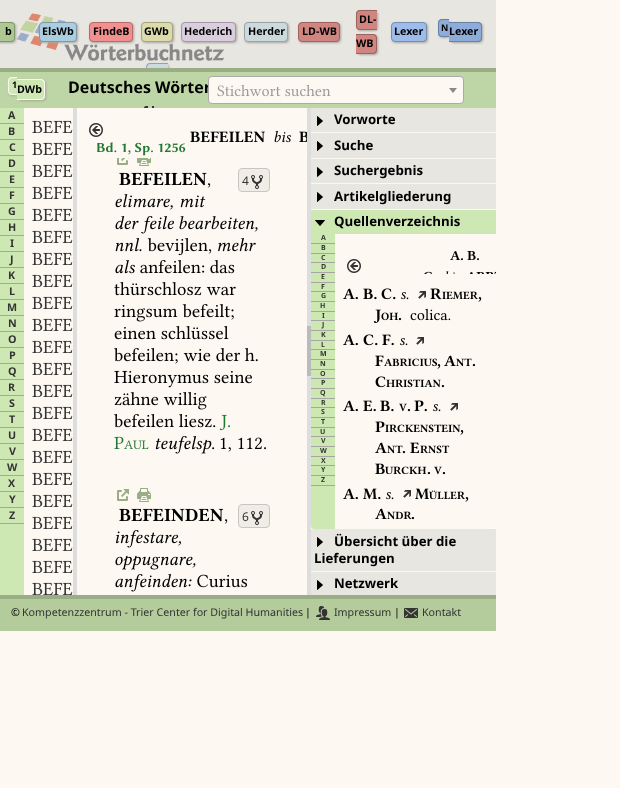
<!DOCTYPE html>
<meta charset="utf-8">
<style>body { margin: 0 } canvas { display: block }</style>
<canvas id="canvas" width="620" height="788"></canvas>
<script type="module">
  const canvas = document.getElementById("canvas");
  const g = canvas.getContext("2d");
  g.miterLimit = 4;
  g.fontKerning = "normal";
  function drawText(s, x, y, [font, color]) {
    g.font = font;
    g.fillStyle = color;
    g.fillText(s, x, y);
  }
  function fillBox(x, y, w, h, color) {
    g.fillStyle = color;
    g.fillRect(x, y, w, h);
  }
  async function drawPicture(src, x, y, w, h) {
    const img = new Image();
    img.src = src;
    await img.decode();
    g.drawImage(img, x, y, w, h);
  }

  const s1 = ["bold 10.7px Noto Sans", "#000000"];
  const s2 = ["bold 9px Noto Sans", "#000000"];
  const s3 = ["bold 16px Noto Sans", "#000000"];
  const s4 = ["bold 10.7px Noto Sans", "#333333"];
  const s5 = ["12px Noto Sans", "#333333"];
  const s6 = ["bold 13.25px Noto Sans", "#000000"];
  const s7 = ["bold 7px Noto Sans", "#333333"];
  const s8 = ["10.7px Noto Sans", "#000000"];
  const s9 = ["10.7px Noto Sans", "#333333"];

  fillBox(0, 0, 620, 788, "#FDF9F2");
  fillBox(0, 68, 496, 4, "#9AAE86");
  fillBox(0, 0, 496, 68, "#E8E6E1");
  await drawPicture("pic1.png", 16, 13, 208, 48);
  g.fillStyle = "#A8A6A1";
  g.filter = "blur(1px)";
  g.beginPath();
  g.roundRect(-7, 23, 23, 20, 4);
  g.fill();
  g.filter = "none";
  g.fillStyle = "#AEC893";
  g.beginPath();
  g.roundRect(0, 22, 15, 20, [0, 4, 4, 0]);
  g.fill();
  g.fillStyle = "#82966E";
  g.beginPath();
  g.moveTo(-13, 22);
  g.lineTo(11, 22);
  g.bezierCurveTo(13, 22, 15, 24, 15, 26);
  g.lineTo(15, 38);
  g.bezierCurveTo(15, 40, 13, 42, 11, 42);
  g.lineTo(-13, 42);
  g.closePath();
  g.moveTo(-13, 23);
  g.lineTo(7, 23);
  g.bezierCurveTo(15.5, 23, 14, 24, 14, 32);
  g.bezierCurveTo(14, 40, 15.5, 41, 7, 41);
  g.lineTo(-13, 41);
  g.closePath();
  g.fill("evenodd");
  drawText("b", 5, 35, s1);
  g.fillStyle = "#A8A6A1";
  g.filter = "blur(1px)";
  g.beginPath();
  g.roundRect(40, 23, 38, 20, 4);
  g.fill();
  g.filter = "none";
  g.fillStyle = "#AACDDF";
  g.beginPath();
  g.roundRect(39.5, 22.5, 37, 19, 3.5);
  g.fill();
  g.strokeStyle = "#7F99A7";
  g.stroke();
  drawText("ElsWb", 42, 35, s1);
  g.fillStyle = "#A8A6A1";
  g.filter = "blur(1px)";
  g.beginPath();
  g.roundRect(90, 23, 44, 20, 4);
  g.fill();
  g.filter = "none";
  g.fillStyle = "#F28F8F";
  g.beginPath();
  g.roundRect(89.5, 22.5, 43, 19, 3.5);
  g.fill();
  g.strokeStyle = "#B56B6B";
  g.stroke();
  drawText("FindeB", 93, 35, s1);
  g.fillStyle = "#A8A6A1";
  g.filter = "blur(1px)";
  g.beginPath();
  g.roundRect(142, 23, 32, 20, 4);
  g.fill();
  g.filter = "none";
  g.fillStyle = "#DBDBAC";
  g.beginPath();
  g.roundRect(141.5, 22.5, 31, 19, 3.5);
  g.fill();
  g.strokeStyle = "#A4A481";
  g.stroke();
  drawText("GWb", 144, 35, s1);
  g.fillStyle = "#A8A6A1";
  g.filter = "blur(1px)";
  g.beginPath();
  g.roundRect(182, 23, 55, 20, 4);
  g.fill();
  g.filter = "none";
  g.fillStyle = "#DACDDE";
  g.beginPath();
  g.roundRect(181.5, 22.5, 54, 19, 3.5);
  g.fill();
  g.strokeStyle = "#A399A6";
  g.stroke();
  drawText("Hederich", 184, 35, s1);
  g.fillStyle = "#A8A6A1";
  g.filter = "blur(1px)";
  g.beginPath();
  g.roundRect(245, 23, 44, 20, 4);
  g.fill();
  g.filter = "none";
  g.fillStyle = "#CCDADE";
  g.beginPath();
  g.roundRect(244.5, 22.5, 43, 19, 3.5);
  g.fill();
  g.strokeStyle = "#99A3A6";
  g.stroke();
  drawText("Herder", 248, 35, s1);
  g.fillStyle = "#A8A6A1";
  g.filter = "blur(1px)";
  g.beginPath();
  g.roundRect(299, 23, 42, 20, 4);
  g.fill();
  g.filter = "none";
  g.fillStyle = "#D08581";
  g.beginPath();
  g.roundRect(298.5, 22.5, 41, 19, 3.5);
  g.fill();
  g.strokeStyle = "#9C6360";
  g.stroke();
  drawText("LD-WB", 302, 35, s1);
  g.fillStyle = "#A8A6A1";
  g.filter = "blur(1px)";
  g.beginPath();
  g.roundRect(357, 11, 21, 20, 4);
  g.fill();
  g.filter = "none";
  g.fillStyle = "#D08581";
  g.beginPath();
  g.roundRect(356, 10, 21, 20, [4, 0, 0, 4]);
  g.fill();
  g.fillStyle = "#9C6360";
  g.beginPath();
  g.moveTo(360, 10);
  g.lineTo(377, 10);
  g.lineTo(377, 30);
  g.lineTo(360, 30);
  g.bezierCurveTo(358, 30, 356, 28, 356, 26);
  g.lineTo(356, 14);
  g.bezierCurveTo(356, 12, 358, 10, 360, 10);
  g.closePath();
  g.moveTo(360, 11);
  g.lineTo(377, 11);
  g.lineTo(377, 29);
  g.lineTo(360, 29);
  g.bezierCurveTo(358.5, 29, 357, 27.5, 357, 26);
  g.lineTo(357, 14);
  g.bezierCurveTo(357, 12.5, 358.5, 11, 360, 11);
  g.closePath();
  g.fill("evenodd");
  drawText("DL-", 359, 23, s1);
  g.fillStyle = "#A8A6A1";
  g.filter = "blur(1px)";
  g.beginPath();
  g.roundRect(357, 35, 21, 20, 4);
  g.fill();
  g.filter = "none";
  g.fillStyle = "#D08581";
  g.beginPath();
  g.roundRect(356, 34, 21, 20, [0, 4, 4, 0]);
  g.fill();
  g.fillStyle = "#9C6360";
  g.beginPath();
  g.moveTo(356, 34);
  g.lineTo(373, 34);
  g.bezierCurveTo(375, 34, 377, 36, 377, 38);
  g.lineTo(377, 50);
  g.bezierCurveTo(377, 52, 375, 54, 373, 54);
  g.lineTo(356, 54);
  g.closePath();
  g.moveTo(356, 35);
  g.lineTo(373, 35);
  g.bezierCurveTo(374.5, 35, 376, 36.5, 376, 38);
  g.lineTo(376, 50);
  g.bezierCurveTo(376, 51.5, 374.5, 53, 373, 53);
  g.lineTo(356, 53);
  g.closePath();
  g.fill("evenodd");
  drawText("WB", 356, 47, s1);
  g.fillStyle = "#A8A6A1";
  g.filter = "blur(1px)";
  g.beginPath();
  g.roundRect(392, 23, 36, 20, 4);
  g.fill();
  g.filter = "none";
  g.fillStyle = "#9DBCEA";
  g.beginPath();
  g.roundRect(391.5, 22.5, 35, 19, 3.5);
  g.fill();
  g.strokeStyle = "#758DAF";
  g.stroke();
  drawText("Lexer", 394, 35, s1);
  g.fillStyle = "#A8A6A1";
  g.filter = "blur(1px)";
  g.beginPath();
  g.roundRect(439, 20, 11, 18, 4);
  g.fill();
  g.filter = "none";
  g.fillStyle = "#8DACDA";
  g.beginPath();
  g.roundRect(438, 19, 11, 18, [4, 0, 0, 4]);
  g.fill();
  g.fillStyle = "#6981A3";
  g.beginPath();
  g.moveTo(442, 19);
  g.lineTo(449, 19);
  g.lineTo(449, 37);
  g.lineTo(442, 37);
  g.bezierCurveTo(440, 37, 438, 35, 438, 33);
  g.lineTo(438, 23);
  g.bezierCurveTo(438, 21, 440, 19, 442, 19);
  g.closePath();
  g.moveTo(442, 20);
  g.lineTo(449, 20);
  g.lineTo(449, 36);
  g.lineTo(442, 36);
  g.bezierCurveTo(440.5, 36, 439, 34.5, 439, 33);
  g.lineTo(439, 23);
  g.bezierCurveTo(439, 21.5, 440.5, 20, 442, 20);
  g.closePath();
  g.fill("evenodd");
  g.fillStyle = "#A8A6A1";
  g.filter = "blur(1px)";
  g.beginPath();
  g.roundRect(450, 23, 33, 20, 4);
  g.fill();
  g.filter = "none";
  drawText("N", 441, 31, s2);
  g.fillStyle = "#8DACDA";
  g.beginPath();
  g.roundRect(449, 22, 33, 20, [0, 4, 4, 0]);
  g.fill();
  g.fillStyle = "#6981A3";
  g.beginPath();
  g.moveTo(449, 22);
  g.lineTo(478, 22);
  g.bezierCurveTo(480, 22, 482, 24, 482, 26);
  g.lineTo(482, 38);
  g.bezierCurveTo(482, 40, 480, 42, 478, 42);
  g.lineTo(449, 42);
  g.closePath();
  g.moveTo(449, 23);
  g.lineTo(478, 23);
  g.bezierCurveTo(479.5, 23, 481, 24.5, 481, 26);
  g.lineTo(481, 38);
  g.bezierCurveTo(481, 39.5, 479.5, 41, 478, 41);
  g.lineTo(449, 41);
  g.closePath();
  g.fill("evenodd");
  drawText("Lexer", 449, 35, s1);
  g.save();
  g.beginPath();
  g.rect(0, 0, 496, 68);
  g.clip();
  g.fillStyle = "#A8A6A1";
  g.filter = "blur(1px)";
  g.beginPath();
  g.roundRect(147, 64, 22, 20, 4);
  g.fill();
  g.filter = "none";
  g.restore();
  g.fillStyle = "#CDDADE";
  g.beginPath();
  g.roundRect(146, 63, 22, 5, [4, 0, 0, 0]);
  g.fill();
  g.save();
  g.beginPath();
  g.rect(0, 0, 496, 68);
  g.clip();
  g.fillStyle = "#99A3A6";
  g.beginPath();
  g.moveTo(150, 63);
  g.lineTo(168, 63);
  g.lineTo(168, 83);
  g.lineTo(150, 83);
  g.bezierCurveTo(148, 83, 146, 81, 146, 79);
  g.lineTo(146, 67);
  g.bezierCurveTo(146, 65, 148, 63, 150, 63);
  g.closePath();
  g.moveTo(150, 64);
  g.lineTo(168, 64);
  g.lineTo(168, 82);
  g.lineTo(150, 82);
  g.bezierCurveTo(148.5, 82, 147, 80.5, 147, 79);
  g.lineTo(147, 67);
  g.bezierCurveTo(147, 65.5, 148.5, 64, 150, 64);
  g.closePath();
  g.fill("evenodd");
  g.restore();
  fillBox(0, 72, 496, 36, "#BED6A5");
  g.fillStyle = "#A8A6A1";
  g.filter = "blur(1px)";
  g.beginPath();
  g.roundRect(9, 78, 9, 18, 4);
  g.fill();
  g.filter = "none";
  g.fillStyle = "#CEE8B3";
  g.beginPath();
  g.roundRect(8, 77, 9, 18, [4, 0, 0, 4]);
  g.fill();
  g.fillStyle = "#FDF9F2";
  g.beginPath();
  g.moveTo(12, 77);
  g.lineTo(17, 77);
  g.lineTo(17, 95);
  g.bezierCurveTo(8.5, 95, 8, 95, 8, 86);
  g.bezierCurveTo(8, 83, 7, 77, 12, 77);
  g.closePath();
  g.moveTo(12, 78);
  g.lineTo(17, 78);
  g.lineTo(17, 94);
  g.bezierCurveTo(9, 94, 9, 94.5, 9, 86);
  g.bezierCurveTo(9, 83.5, 8, 78, 12, 78);
  g.closePath();
  g.fill("evenodd");
  g.fillStyle = "#A8A6A1";
  g.filter = "blur(1px)";
  g.beginPath();
  g.roundRect(18, 80, 28, 21, 4);
  g.fill();
  g.filter = "none";
  drawText("1", 12, 88, s2);
  g.fillStyle = "#CEE8B3";
  g.beginPath();
  g.roundRect(17, 79, 28, 21, [0, 4, 4, 0]);
  g.fill();
  g.fillStyle = "#FDF9F2";
  g.beginPath();
  g.moveTo(17, 79);
  g.lineTo(41, 79);
  g.bezierCurveTo(43, 79, 45, 81, 45, 83);
  g.lineTo(45, 96);
  g.bezierCurveTo(45, 98, 43, 100, 41, 100);
  g.lineTo(17, 100);
  g.closePath();
  g.moveTo(17, 80);
  g.lineTo(41, 80);
  g.bezierCurveTo(42.5, 80, 44, 81.5, 44, 83);
  g.lineTo(44, 96);
  g.bezierCurveTo(44, 97.5, 42.5, 99, 41, 99);
  g.lineTo(17, 99);
  g.closePath();
  g.fill("evenodd");
  drawText("DWb", 17, 93, s1);
  drawText("Deutsches Wörter", 68, 93, s3);
  g.fillStyle = "#FDF9F2";
  g.beginPath();
  g.roundRect(208.5, 76.5, 255, 27, 3.5);
  g.fill();
  g.strokeStyle = "#AAAAAA";
  g.stroke();
  await drawPicture("pic2.png", 217, 84, 114, 13);
  g.fillStyle = "#888888";
  g.beginPath();
  g.moveTo(449, 88);
  g.lineTo(457, 88);
  g.lineTo(453, 93);
  g.closePath();
  g.fill();
  await drawPicture("pic3.png", 144, 106, 10, 2);
  fillBox(73, 108, 4, 487, "#DDDDDD");
  fillBox(307, 108, 4, 487, "#DDDDDD");
  fillBox(307, 326, 4, 50, "#BBBBBB");
  fillBox(0, 108, 24, 487, "#CEE8B3");
  fillBox(0, 123, 24, 1, "#A8A6A1");
  drawText("A", 8, 119, s4);
  fillBox(0, 139, 24, 1, "#A8A6A1");
  drawText("B", 8, 135, s4);
  fillBox(0, 155, 24, 1, "#A8A6A1");
  drawText("C", 9, 151, s4);
  fillBox(0, 171, 24, 1, "#A8A6A1");
  drawText("D", 8, 167, s4);
  fillBox(0, 187, 24, 1, "#A8A6A1");
  drawText("E", 9, 183, s4);
  fillBox(0, 203, 24, 1, "#A8A6A1");
  drawText("F", 9, 199, s4);
  fillBox(0, 219, 24, 1, "#A8A6A1");
  drawText("G", 8, 215, s4);
  fillBox(0, 235, 24, 1, "#A8A6A1");
  drawText("H", 8, 231, s4);
  fillBox(0, 251, 24, 1, "#A8A6A1");
  drawText("I", 10, 247, s4);
  fillBox(0, 267, 24, 1, "#A8A6A1");
  drawText("J", 10, 263, s4);
  fillBox(0, 283, 24, 1, "#A8A6A1");
  drawText("K", 8, 279, s4);
  fillBox(0, 299, 24, 1, "#A8A6A1");
  drawText("L", 9, 295, s4);
  fillBox(0, 315, 24, 1, "#A8A6A1");
  drawText("M", 7, 311, s4);
  fillBox(0, 331, 24, 1, "#A8A6A1");
  drawText("N", 8, 327, s4);
  fillBox(0, 347, 24, 1, "#A8A6A1");
  drawText("O", 8, 343, s4);
  fillBox(0, 363, 24, 1, "#A8A6A1");
  drawText("P", 9, 359, s4);
  fillBox(0, 379, 24, 1, "#A8A6A1");
  drawText("Q", 8, 375, s4);
  fillBox(0, 395, 24, 1, "#A8A6A1");
  drawText("R", 8, 391, s4);
  fillBox(0, 411, 24, 1, "#A8A6A1");
  drawText("S", 9, 407, s4);
  fillBox(0, 427, 24, 1, "#A8A6A1");
  drawText("T", 9, 423, s4);
  fillBox(0, 443, 24, 1, "#A8A6A1");
  drawText("U", 8, 439, s4);
  fillBox(0, 459, 24, 1, "#A8A6A1");
  drawText("V", 9, 455, s4);
  fillBox(0, 475, 24, 1, "#A8A6A1");
  drawText("W", 7, 471, s4);
  fillBox(0, 491, 24, 1, "#A8A6A1");
  drawText("X", 8, 487, s4);
  fillBox(0, 507, 24, 1, "#A8A6A1");
  drawText("Y", 9, 503, s4);
  fillBox(0, 523, 24, 1, "#A8A6A1");
  drawText("Z", 9, 519, s4);
  await drawPicture("pic4.png", 32, 120, 41, 13);
  await drawPicture("pic4.png", 32, 142, 41, 13);
  await drawPicture("pic4.png", 32, 164, 41, 13);
  await drawPicture("pic4.png", 32, 186, 41, 13);
  await drawPicture("pic4.png", 32, 208, 41, 13);
  await drawPicture("pic4.png", 32, 230, 41, 13);
  await drawPicture("pic4.png", 32, 252, 41, 13);
  await drawPicture("pic4.png", 32, 274, 41, 13);
  await drawPicture("pic4.png", 32, 296, 41, 13);
  await drawPicture("pic4.png", 32, 318, 41, 13);
  await drawPicture("pic4.png", 32, 340, 41, 13);
  await drawPicture("pic4.png", 32, 362, 41, 13);
  await drawPicture("pic4.png", 32, 384, 41, 13);
  await drawPicture("pic4.png", 32, 406, 41, 13);
  await drawPicture("pic4.png", 32, 428, 41, 13);
  await drawPicture("pic4.png", 32, 450, 41, 13);
  await drawPicture("pic4.png", 32, 472, 41, 13);
  await drawPicture("pic4.png", 32, 494, 41, 13);
  await drawPicture("pic4.png", 32, 516, 41, 13);
  await drawPicture("pic4.png", 32, 538, 41, 13);
  await drawPicture("pic4.png", 32, 560, 41, 13);
  await drawPicture("pic4.png", 32, 582, 41, 13);
  await drawPicture("pic5.png", 89, 123, 14, 14);
  await drawPicture("pic6.png", 97, 142, 89, 14);
  await drawPicture("pic7.png", 190, 131, 75, 12);
  await drawPicture("pic8.png", 274, 130, 18, 13);
  await drawPicture("pic9.png", 299, 131, 8, 11);
  await drawPicture("pic10.png", 117, 158, 12, 7);
  await drawPicture("pic11.png", 137, 158, 14, 8);
  await drawPicture("pic12.png", 119, 172, 88, 14);
  g.fillStyle = "#F0EDE6";
  g.beginPath();
  g.roundRect(238.5, 168.5, 31, 23, 3.5);
  g.fill();
  g.strokeStyle = "#C8C6C1";
  g.stroke();
  drawText("4", 242, 185, s5);
  await drawPicture("pic13.png", 251, 175, 12, 14);
  await drawPicture("pic14.png", 207, 183, 4, 5);
  await drawPicture("pic15.png", 115, 194, 58, 16);
  await drawPicture("pic16.png", 180, 195, 26, 13);
  await drawPicture("pic17.png", 115, 216, 24, 14);
  await drawPicture("pic18.png", 141, 216, 33, 18);
  await drawPicture("pic19.png", 179, 216, 79, 16);
  await drawPicture("pic20.png", 115, 238, 27, 14);
  await drawPicture("pic21.png", 147, 238, 65, 18);
  await drawPicture("pic22.png", 218, 238, 38, 14);
  await drawPicture("pic23.png", 115, 260, 20, 14);
  await drawPicture("pic24.png", 140, 260, 65, 14);
  await drawPicture("pic25.png", 210, 260, 25, 14);
  await drawPicture("pic26.png", 114, 282, 88, 14);
  await drawPicture("pic27.png", 206, 286, 30, 10);
  await drawPicture("pic28.png", 114, 305, 64, 17);
  await drawPicture("pic29.png", 182, 304, 52, 16);
  await drawPicture("pic30.png", 114, 327, 42, 13);
  await drawPicture("pic31.png", 161, 326, 68, 14);
  await drawPicture("pic32.png", 114, 348, 64, 16);
  await drawPicture("pic33.png", 183, 349, 28, 13);
  await drawPicture("pic34.png", 216, 348, 25, 14);
  await drawPicture("pic35.png", 244, 348, 14, 14);
  await drawPicture("pic36.png", 114, 370, 95, 18);
  await drawPicture("pic37.png", 214, 371, 38, 13);
  await drawPicture("pic38.png", 114, 392, 45, 14);
  await drawPicture("pic39.png", 163, 392, 44, 18);
  await drawPicture("pic40.png", 114, 414, 60, 14);
  await drawPicture("pic41.png", 179, 414, 37, 14);
  await drawPicture("pic42.png", 219, 414, 11, 17);
  await drawPicture("pic43.png", 114, 436, 10, 13);
  await drawPicture("pic44.png", 124, 440, 25, 10);
  await drawPicture("pic45.png", 155, 436, 60, 18);
  await drawPicture("pic46.png", 220, 437, 11, 15);
  await drawPicture("pic47.png", 238, 437, 24, 12);
  await drawPicture("pic48.png", 264, 447, 2, 3);
  await drawPicture("pic49.png", 117, 489, 12, 12);
  await drawPicture("pic50.png", 137, 488, 14, 14);
  await drawPicture("pic51.png", 119, 508, 105, 14);
  await drawPicture("pic14.png", 224, 519, 4, 5);
  g.fillStyle = "#F0EDE6";
  g.beginPath();
  g.roundRect(238.5, 504.5, 31, 23, 3.5);
  g.fill();
  g.stroke();
  drawText("6", 242, 521, s5);
  await drawPicture("pic13.png", 251, 511, 12, 14);
  await drawPicture("pic52.png", 116, 530, 65, 18);
  await drawPicture("pic53.png", 115, 555, 81, 15);
  await drawPicture("pic54.png", 115, 574, 77, 18);
  await drawPicture("pic55.png", 197, 574, 51, 14);
  fillBox(311, 526, 185, 3, "#FFFFFF");
  fillBox(311, 108, 185, 24, "#E8E6E1");
  await drawPicture("pic56.png", 317, 116, 6, 10);
  drawText("Vorworte", 334, 124, s6);
  fillBox(311, 133, 185, 25, "#E8E6E1");
  await drawPicture("pic56.png", 317, 141, 6, 10);
  drawText("Suche", 334, 150, s6);
  fillBox(311, 159, 185, 24, "#E8E6E1");
  await drawPicture("pic56.png", 317, 167, 6, 10);
  drawText("Suchergebnis", 334, 175, s6);
  fillBox(311, 184, 185, 25, "#E8E6E1");
  await drawPicture("pic56.png", 317, 192, 6, 10);
  drawText("Artikelgliederung", 334, 201, s6);
  fillBox(311, 210, 185, 24, "#CEE8B3");
  await drawPicture("pic57.png", 315, 220, 10, 6);
  drawText("Quellenverzeichnis", 334, 226, s6);
  g.fillStyle = "#CEE8B3";
  g.beginPath();
  g.roundRect(311, 234, 24, 295, [0, 0, 0, 3]);
  g.fill();
  fillBox(311, 243, 25, 1, "#A8A6A1");
  drawText("A", 321, 240, s7);
  fillBox(311, 253, 25, 1, "#A8A6A1");
  drawText("B", 321, 250, s7);
  fillBox(311, 262, 25, 1, "#A8A6A1");
  drawText("C", 321, 260, s7);
  fillBox(311, 272, 25, 1, "#A8A6A1");
  drawText("D", 321, 269, s7);
  fillBox(311, 282, 25, 1, "#A8A6A1");
  drawText("E", 321, 279, s7);
  fillBox(311, 291, 25, 1, "#A8A6A1");
  drawText("F", 321, 289, s7);
  fillBox(311, 301, 25, 1, "#A8A6A1");
  drawText("G", 321, 298, s7);
  fillBox(311, 311, 25, 1, "#A8A6A1");
  drawText("H", 320, 308, s7);
  fillBox(311, 320, 25, 1, "#A8A6A1");
  drawText("I", 322, 318, s7);
  fillBox(311, 330, 25, 1, "#A8A6A1");
  drawText("J", 322, 327, s7);
  fillBox(311, 340, 25, 1, "#A8A6A1");
  drawText("K", 321, 337, s7);
  fillBox(311, 349, 25, 1, "#A8A6A1");
  drawText("L", 321, 347, s7);
  fillBox(311, 359, 25, 1, "#A8A6A1");
  drawText("M", 320, 356, s7);
  fillBox(311, 369, 25, 1, "#A8A6A1");
  drawText("N", 320, 366, s7);
  fillBox(311, 378, 25, 1, "#A8A6A1");
  drawText("O", 320, 376, s7);
  fillBox(311, 388, 25, 1, "#A8A6A1");
  drawText("P", 321, 385, s7);
  fillBox(311, 398, 25, 1, "#A8A6A1");
  drawText("Q", 320, 395, s7);
  fillBox(311, 407, 25, 1, "#A8A6A1");
  drawText("R", 321, 405, s7);
  fillBox(311, 417, 25, 1, "#A8A6A1");
  drawText("S", 321, 414, s7);
  fillBox(311, 427, 25, 1, "#A8A6A1");
  drawText("T", 321, 424, s7);
  fillBox(311, 436, 25, 1, "#A8A6A1");
  drawText("U", 320, 434, s7);
  fillBox(311, 446, 25, 1, "#A8A6A1");
  drawText("V", 321, 443, s7);
  fillBox(311, 456, 25, 1, "#A8A6A1");
  drawText("W", 320, 453, s7);
  fillBox(311, 465, 25, 1, "#A8A6A1");
  drawText("X", 321, 463, s7);
  fillBox(311, 475, 25, 1, "#A8A6A1");
  drawText("Y", 321, 472, s7);
  fillBox(311, 485, 25, 1, "#A8A6A1");
  drawText("Z", 321, 482, s7);
  fillBox(335, 243, 1, 30, "#FDF9F2");
  await drawPicture("pic5.png", 347, 259, 14, 14);
  await drawPicture("pic58.png", 450, 251, 29, 10);
  await drawPicture("pic59.png", 424, 271, 8, 3);
  await drawPicture("pic60.png", 446, 271, 9, 3);
  await drawPicture("pic61.png", 469, 271, 27, 3);
  g.beginPath();
  g.roundRect(335, 274, 161, 255, [0, 0, 3, 0]);
  g.fill();
  await drawPicture("pic62.png", 343, 288, 15, 12);
  await drawPicture("pic63.png", 363, 288, 14, 12);
  await drawPicture("pic64.png", 418, 291, 8, 8);
  await drawPicture("pic65.png", 430, 288, 12, 12);
  await drawPicture("pic66.png", 442, 291, 36, 9);
  await drawPicture("pic67.png", 478, 297, 4, 5);
  await drawPicture("pic68.png", 373, 309, 8, 14);
  await drawPicture("pic69.png", 381, 312, 17, 9);
  await drawPicture("pic70.png", 398, 318, 4, 3);
  await drawPicture("pic71.png", 381, 288, 15, 12);
  await drawPicture("pic72.png", 401, 292, 8, 8);
  await drawPicture("pic73.png", 410, 308, 41, 13);
  await drawPicture("pic62.png", 343, 334, 15, 12);
  await drawPicture("pic71.png", 363, 334, 15, 12);
  await drawPicture("pic74.png", 382, 334, 12, 12);
  await drawPicture("pic64.png", 416, 337, 8, 8);
  await drawPicture("pic75.png", 375, 355, 9, 11);
  await drawPicture("pic76.png", 384, 358, 54, 9);
  await drawPicture("pic77.png", 437, 364, 4, 5);
  await drawPicture("pic78.png", 444, 355, 12, 11);
  await drawPicture("pic79.png", 456, 358, 16, 9);
  await drawPicture("pic70.png", 472, 364, 4, 3);
  await drawPicture("pic80.png", 375, 376, 11, 12);
  await drawPicture("pic81.png", 386, 379, 55, 9);
  await drawPicture("pic70.png", 441, 385, 4, 3);
  await drawPicture("pic72.png", 400, 338, 8, 8);
  await drawPicture("pic62.png", 343, 400, 15, 12);
  await drawPicture("pic82.png", 363, 400, 13, 12);
  await drawPicture("pic63.png", 380, 400, 14, 12);
  await drawPicture("pic83.png", 414, 400, 13, 12);
  await drawPicture("pic64.png", 450, 403, 8, 8);
  await drawPicture("pic84.png", 375, 421, 10, 11);
  await drawPicture("pic85.png", 385, 424, 76, 9);
  await drawPicture("pic67.png", 460, 430, 4, 5);
  await drawPicture("pic78.png", 375, 442, 12, 11);
  await drawPicture("pic79.png", 387, 445, 16, 9);
  await drawPicture("pic70.png", 402, 451, 4, 3);
  await drawPicture("pic86.png", 410, 442, 10, 11);
  await drawPicture("pic87.png", 420, 445, 30, 9);
  await drawPicture("pic88.png", 375, 463, 10, 11);
  await drawPicture("pic89.png", 385, 466, 42, 9);
  await drawPicture("pic70.png", 427, 472, 4, 3);
  await drawPicture("pic90.png", 434, 466, 8, 9);
  await drawPicture("pic70.png", 442, 472, 4, 3);
  await drawPicture("pic90.png", 399, 403, 8, 9);
  await drawPicture("pic70.png", 407, 409, 4, 3);
  await drawPicture("pic72.png", 433, 404, 8, 8);
  await drawPicture("pic62.png", 343, 488, 15, 12);
  await drawPicture("pic91.png", 363, 488, 18, 12);
  await drawPicture("pic64.png", 403, 490, 8, 8);
  await drawPicture("pic92.png", 415, 488, 14, 12);
  await drawPicture("pic93.png", 429, 490, 36, 10);
  await drawPicture("pic67.png", 465, 497, 4, 5);
  await drawPicture("pic78.png", 375, 508, 12, 11);
  await drawPicture("pic94.png", 387, 511, 25, 9);
  await drawPicture("pic95.png", 411, 517, 4, 3);
  await drawPicture("pic72.png", 386, 492, 8, 8);
  fillBox(311, 529, 185, 42, "#E8E6E1");
  await drawPicture("pic56.png", 317, 537, 6, 10);
  drawText("Übersicht über die", 334, 546, s6);
  drawText("Lieferungen", 314, 563, s6);
  fillBox(311, 572, 185, 23, "#E8E6E1");
  await drawPicture("pic56.png", 317, 580, 6, 10);
  drawText("Netzwerk", 334, 588, s6);
  fillBox(0, 595, 496, 4, "#9AAE86");
  fillBox(0, 599, 496, 32, "#B4CB9C");
  drawText("©", 11, 616, s8);
  drawText("Kompetenzzentrum - Trier Center for Digital Humanities", 22, 616, s9);
  drawText("|", 305, 616, s8);
  await drawPicture("pic96.png", 316, 606, 14, 14);
  drawText("Impressum", 334, 616, s9);
  drawText("|", 394, 616, s8);
  await drawPicture("pic97.png", 404, 608, 14, 10);
  drawText("Kontakt", 422, 616, s9);
</script>
